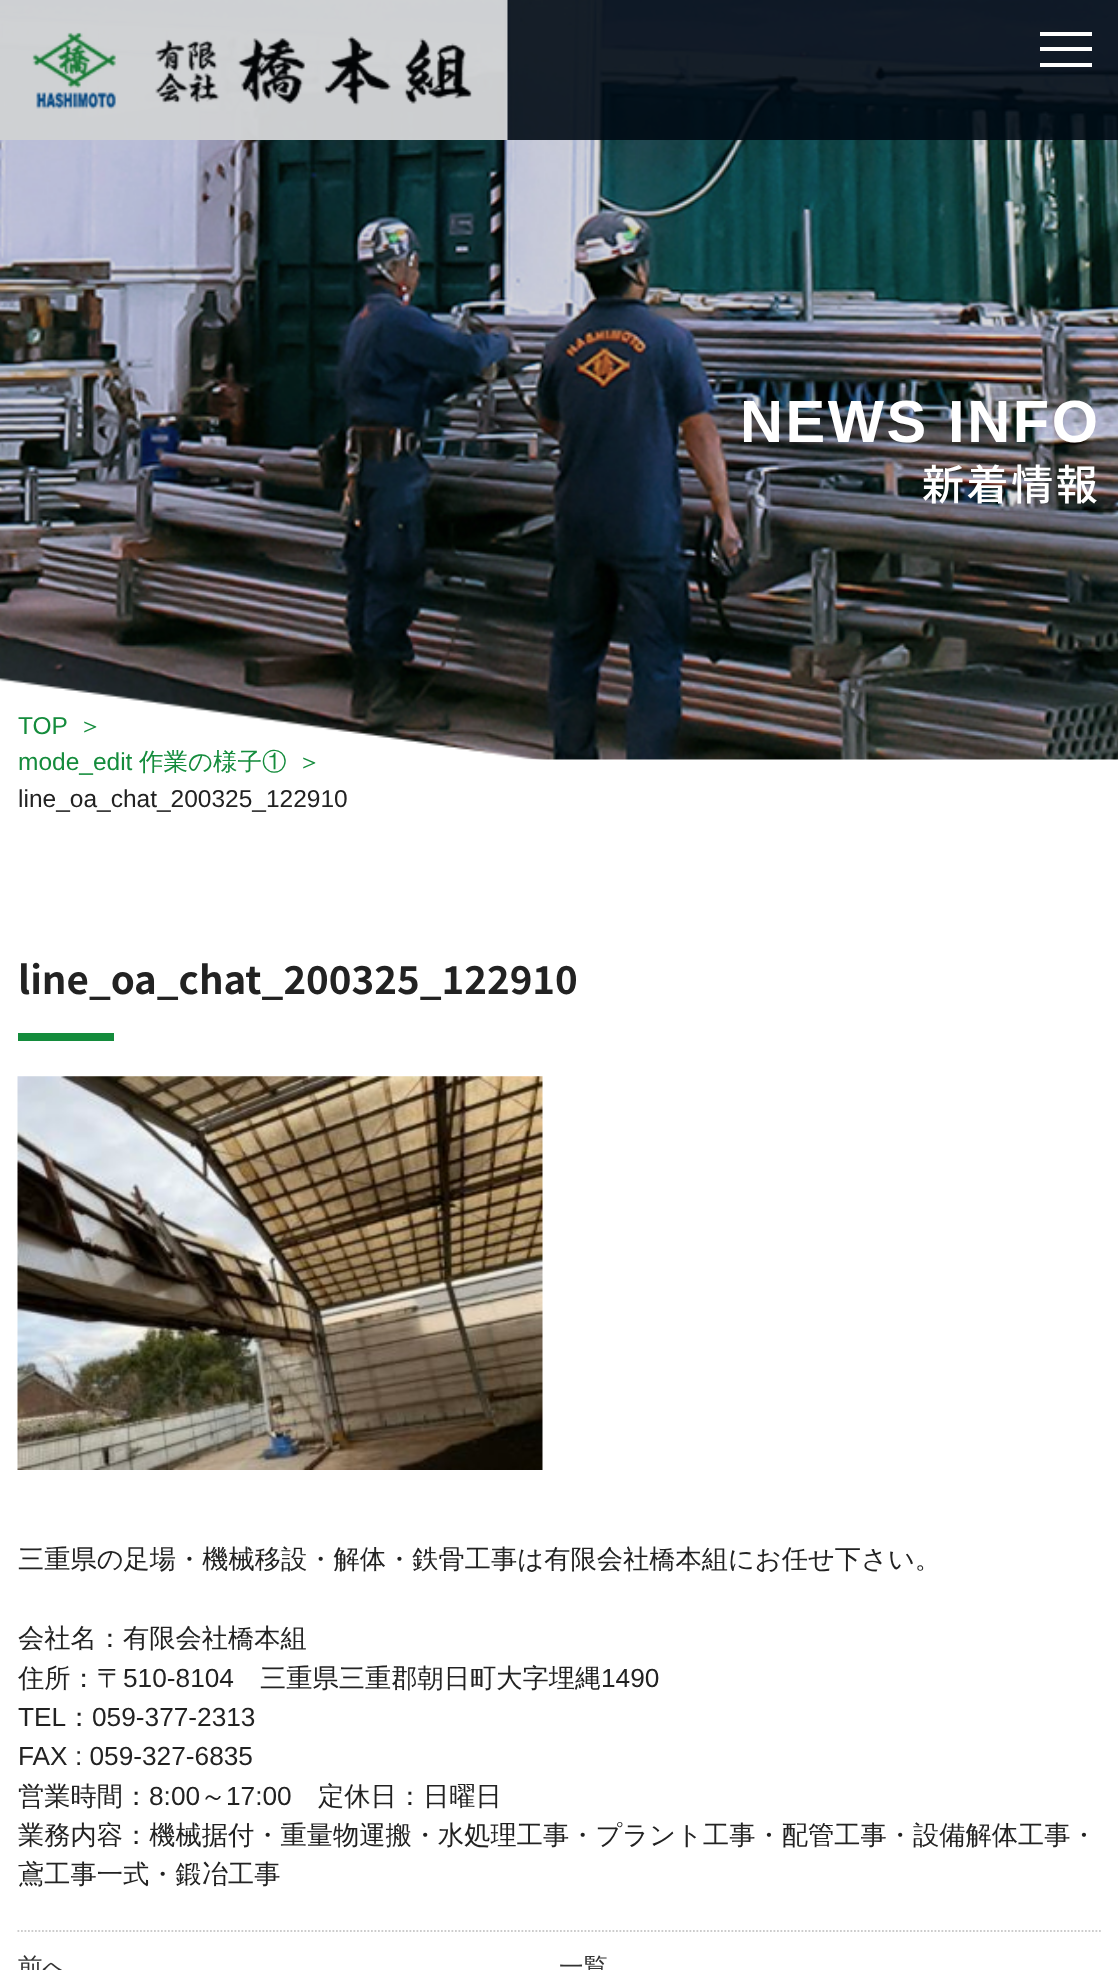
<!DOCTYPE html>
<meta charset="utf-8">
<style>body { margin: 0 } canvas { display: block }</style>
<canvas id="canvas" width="1118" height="1970"></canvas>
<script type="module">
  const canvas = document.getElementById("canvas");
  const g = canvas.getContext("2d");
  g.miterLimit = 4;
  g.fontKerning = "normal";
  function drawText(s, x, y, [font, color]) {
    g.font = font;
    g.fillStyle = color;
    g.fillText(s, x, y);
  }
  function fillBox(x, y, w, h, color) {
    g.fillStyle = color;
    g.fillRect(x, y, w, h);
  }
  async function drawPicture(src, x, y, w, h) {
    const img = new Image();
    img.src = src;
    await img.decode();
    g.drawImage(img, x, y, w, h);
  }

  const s1 = ["bold 59.5px Liberation Sans", "#FFFFFF"];
  const s2 = ["500 42px Noto Sans JP", "#FFFFFF"];
  const s3 = ["24.5px Liberation Sans", "#148C3C"];
  const s4 = ["500 24.5px WenQuanYi Zen Hei", "#148C3C"];
  const s5 = ["24.5px Liberation Sans", "#222222"];
  const s6 = ["bold 38.5px Noto Sans JP", "#222222"];
  const s7 = ["500 26.25px WenQuanYi Zen Hei", "#222222"];
  const s8 = ["26.25px Liberation Sans", "#222222"];
  const s9 = ["500 24.5px WenQuanYi Zen Hei", "#333333"];

  fillBox(0, 0, 1118, 1970, "#FFFFFF");
  await drawPicture("pic2.png", 0, 0, 1118, 760);
  fillBox(0, 0, 1118, 140, "rgba(0, 10, 20, 0.9)");
  await drawPicture("pic1.png", 0, 0, 508, 140);
  fillBox(1040, 47, 52, 4, "#FFFFFF");
  fillBox(1040, 32, 52, 4, "#FFFFFF");
  fillBox(1040, 63, 52, 4, "#FFFFFF");
  g.letterSpacing = "2.6px";
  drawText("NEWS INFO", 740, 442, s1);
  drawText("新着情報", 922, 500, s2);
  g.letterSpacing = "0px";
  drawText("TOP", 18, 734, s3);
  drawText("＞", 78, 734, s4);
  drawText("mode_edit", 18, 770, s3);
  drawText("作業の様子①", 139, 770, s4);
  drawText("＞", 297, 770, s4);
  drawText("line_oa_chat_200325_122910", 18, 807, s5);
  drawText("line_oa_chat_200325_122910", 18, 994, s6);
  fillBox(18, 1033, 96, 8, "#148C3C");
  await drawPicture("pic3.png", 17, 1076, 526, 394);
  drawText("三重県の足場・機械移設・解体・鉄骨工事は有限会社橋本組にお任せ下さい。", 18, 1568, s7);
  drawText("会社名：有限会社橋本組", 18, 1647, s7);
  drawText("住所：〒", 18, 1687, s7);
  drawText("510-8104", 123, 1687, s8);
  drawText("三重県三重郡朝日町大字埋縄", 260, 1687, s7);
  drawText("1490", 601, 1687, s8);
  drawText("TEL", 18, 1726, s8);
  drawText("：", 66, 1726, s7);
  drawText("059-377-2313", 92, 1726, s8);
  drawText("FAX : 059-327-6835", 18, 1765, s8);
  drawText("営業時間：", 18, 1805, s7);
  drawText("8:00", 149, 1805, s8);
  drawText("～", 200, 1805, s7);
  drawText("17:00", 226, 1805, s8);
  drawText("定休日：日曜日", 318, 1805, s7);
  drawText("業務内容：機械据付・重量物運搬・水処理工事・プラント工事・配管工事・設備解体工事・", 18, 1844, s7);
  drawText("鳶工事一式・鍛冶工事", 18, 1883, s7);
  g.beginPath();
  g.moveTo(17.5, 1931);
  g.lineTo(1101, 1931);
  g.strokeStyle = "#CCCCCC";
  g.lineWidth = 1.8;
  g.setLineDash([1.75, 1.75]);
  g.stroke();
  drawText("前へ", 18, 1975, s9);
  drawText("一覧", 559, 1975, s9);
</script>
